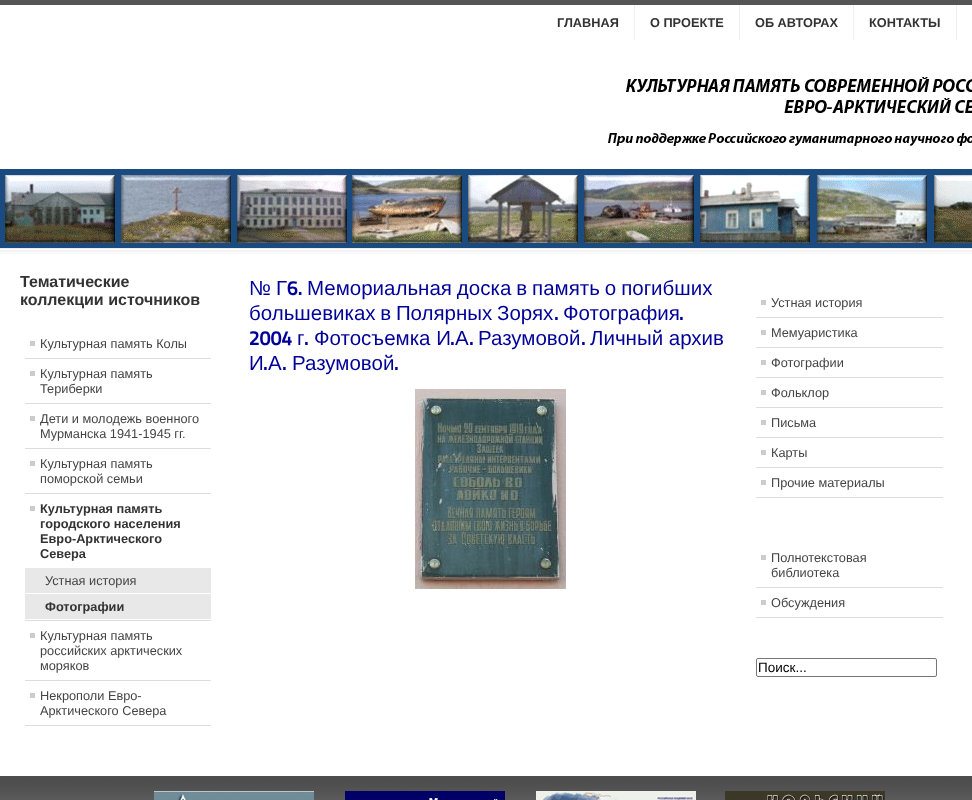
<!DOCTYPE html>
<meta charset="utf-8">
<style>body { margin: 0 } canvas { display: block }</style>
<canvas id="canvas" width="972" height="800"></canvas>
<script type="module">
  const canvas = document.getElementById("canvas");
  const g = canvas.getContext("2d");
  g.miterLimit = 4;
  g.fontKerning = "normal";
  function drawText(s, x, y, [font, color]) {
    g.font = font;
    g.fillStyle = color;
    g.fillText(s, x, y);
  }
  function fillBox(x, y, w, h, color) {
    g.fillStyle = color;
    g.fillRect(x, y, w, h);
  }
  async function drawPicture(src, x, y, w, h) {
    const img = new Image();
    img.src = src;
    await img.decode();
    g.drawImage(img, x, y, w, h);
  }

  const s1 = ["bold 12.75px Liberation Sans", "#333333"];
  const s2 = ["bold 16px Liberation Sans", "#333333"];
  const s3 = ["12.75px Liberation Sans", "#444444"];
  const s4 = ["20.5px Liberation Sans", "#000099"];
  const s5 = ["800 20.5px 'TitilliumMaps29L'", "#000099"];
  const s6 = ["13.5px Liberation Sans", "#000000"];

  fillBox(0, 0, 972, 800, "#FFFFFF");
  fillBox(0, 0, 972, 5, "#555555");
  await drawPicture("pic1.png", 608, 77, 364, 69);
  drawText("ГЛАВНАЯ", 557, 27, s1);
  fillBox(634, 5, 1, 35, "#EEEEEE");
  drawText("О ПРОЕКТЕ", 650, 27, s1);
  fillBox(739, 5, 1, 35, "#EEEEEE");
  drawText("ОБ АВТОРАХ", 755, 27, s1);
  fillBox(853, 5, 1, 35, "#EEEEEE");
  drawText("КОНТАКТЫ", 869, 27, s1);
  fillBox(956, 5, 1, 35, "#EEEEEE");
  await drawPicture("pic2.png", 0, 169, 972, 79);
  await drawPicture("pic3.png", 0, 248, 972, 6);
  drawText("Тематические", 20, 287, s2);
  drawText("коллекции источников", 20, 305, s2);
  fillBox(25, 358, 186, 1, "#DDDDDD");
  fillBox(30, 341, 5, 5, "#CCCCCC");
  drawText("Культурная память Колы", 40, 348, s3);
  fillBox(25, 403, 186, 1, "#DDDDDD");
  fillBox(30, 371, 5, 5, "#CCCCCC");
  drawText("Культурная память", 40, 378, s3);
  drawText("Териберки", 40, 393, s3);
  fillBox(25, 448, 186, 1, "#DDDDDD");
  fillBox(30, 416, 5, 5, "#CCCCCC");
  drawText("Дети и молодежь военного", 40, 423, s3);
  drawText("Мурманска 1941-1945 гг.", 40, 438, s3);
  fillBox(25, 493, 186, 1, "#DDDDDD");
  fillBox(30, 461, 5, 5, "#CCCCCC");
  drawText("Культурная память", 40, 468, s3);
  drawText("поморской семьи", 40, 483, s3);
  fillBox(25, 620, 186, 1, "#DDDDDD");
  fillBox(30, 506, 5, 5, "#CCCCCC");
  drawText("Культурная память", 40, 513, s1);
  drawText("городского населения", 40, 528, s1);
  drawText("Евро-Арктического", 40, 543, s1);
  drawText("Севера", 40, 558, s1);
  fillBox(25, 568, 186, 25, "#E8E8E8");
  drawText("Устная история", 45, 585, s3);
  fillBox(25, 594, 186, 25, "#E8E8E8");
  drawText("Фотографии", 45, 611, s1);
  fillBox(25, 680, 186, 1, "#DDDDDD");
  fillBox(30, 633, 5, 5, "#CCCCCC");
  drawText("Культурная память", 40, 640, s3);
  drawText("российских арктических", 40, 655, s3);
  drawText("моряков", 40, 670, s3);
  fillBox(25, 725, 186, 1, "#DDDDDD");
  fillBox(30, 693, 5, 5, "#CCCCCC");
  drawText("Некрополи Евро-", 40, 700, s3);
  drawText("Арктического Севера", 40, 715, s3);
  g.wordSpacing = "-0.75px";
  drawText("№ Г", 249, 295, s4);
  g.wordSpacing = "0px";
  drawText("6.", 287, 295, s5);
  g.wordSpacing = "-0.75px";
  drawText("Мемориальная доска в память о погибших", 307, 295, s4);
  g.wordSpacing = "-1px";
  drawText("большевиках в Полярных Зорях", 249, 320, s4);
  g.wordSpacing = "0px";
  drawText(".", 554, 320, s5);
  drawText("Фотография", 563, 320, s4);
  drawText(".", 679, 320, s5);
  drawText("2004", 249, 345, s5);
  drawText("г", 297, 345, s4);
  drawText(".", 304, 345, s5);
  drawText("Фотосъемка И", 314, 345, s4);
  drawText(".", 450, 345, s5);
  drawText("А", 455, 345, s4);
  drawText(".", 469, 345, s5);
  drawText("Разумовой", 478, 345, s4);
  drawText(".", 581, 345, s5);
  drawText("Личный архив", 590, 345, s4);
  drawText("И", 249, 370, s4);
  drawText(".", 263, 370, s5);
  drawText("А", 268, 370, s4);
  drawText(".", 282, 370, s5);
  drawText("Разумовой", 292, 370, s4);
  drawText(".", 394, 370, s5);
  await drawPicture("pic4.png", 415, 389, 151, 200);
  fillBox(756, 317, 187, 1, "#DDDDDD");
  fillBox(761, 300, 5, 5, "#CCCCCC");
  drawText("Устная история", 771, 307, s3);
  fillBox(756, 347, 187, 1, "#DDDDDD");
  fillBox(761, 330, 5, 5, "#CCCCCC");
  drawText("Мемуаристика", 771, 337, s3);
  fillBox(756, 377, 187, 1, "#DDDDDD");
  fillBox(761, 360, 5, 5, "#CCCCCC");
  drawText("Фотографии", 771, 367, s3);
  fillBox(756, 407, 187, 1, "#DDDDDD");
  fillBox(761, 390, 5, 5, "#CCCCCC");
  drawText("Фольклор", 771, 397, s3);
  fillBox(756, 437, 187, 1, "#DDDDDD");
  fillBox(761, 420, 5, 5, "#CCCCCC");
  drawText("Письма", 771, 427, s3);
  fillBox(756, 467, 187, 1, "#DDDDDD");
  fillBox(761, 450, 5, 5, "#CCCCCC");
  drawText("Карты", 771, 457, s3);
  fillBox(756, 497, 187, 1, "#DDDDDD");
  fillBox(761, 480, 5, 5, "#CCCCCC");
  drawText("Прочие материалы", 771, 487, s3);
  fillBox(756, 587, 187, 1, "#DDDDDD");
  fillBox(761, 555, 5, 5, "#CCCCCC");
  drawText("Полнотекстовая", 771, 562, s3);
  drawText("библиотека", 771, 577, s3);
  fillBox(756, 617, 187, 1, "#DDDDDD");
  fillBox(761, 600, 5, 5, "#CCCCCC");
  drawText("Обсуждения", 771, 607, s3);
  g.beginPath();
  g.roundRect(756.5, 658.5, 180, 18, 1.5);
  g.strokeStyle = "#767676";
  g.stroke();
  drawText("Поиск...", 758, 672, s6);
  await drawPicture("pic5.png", 0, 776, 972, 24);
  await drawPicture("pic6.png", 154, 791, 160, 9);
  await drawPicture("pic7.png", 345, 791, 160, 9);
  await drawPicture("pic8.png", 536, 791, 160, 9);
  await drawPicture("pic9.png", 725, 791, 160, 9);
</script>
